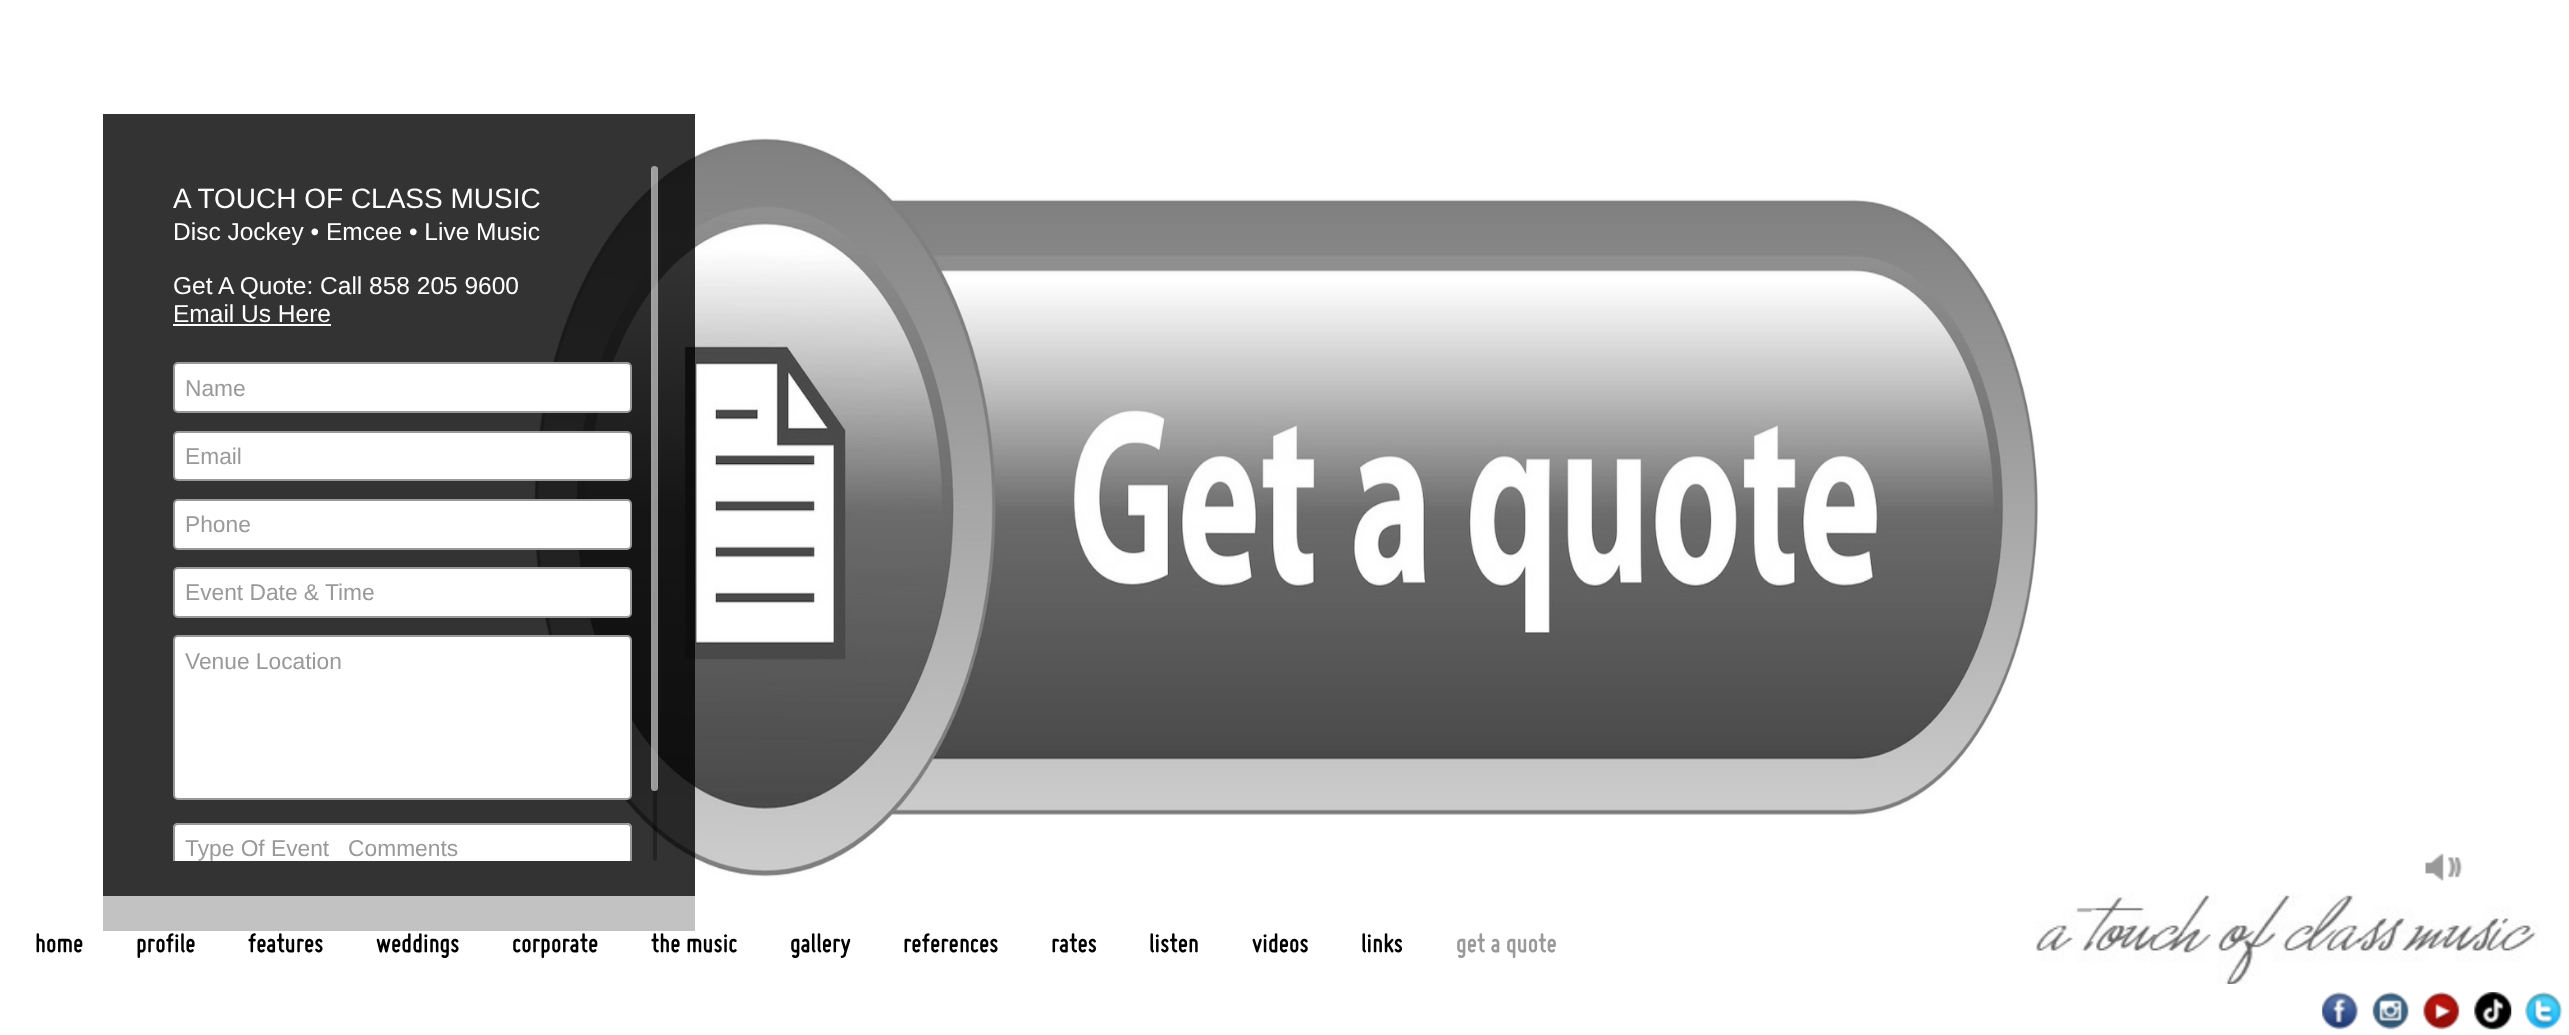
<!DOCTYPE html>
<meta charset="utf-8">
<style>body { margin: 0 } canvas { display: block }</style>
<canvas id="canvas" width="2569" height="1035"></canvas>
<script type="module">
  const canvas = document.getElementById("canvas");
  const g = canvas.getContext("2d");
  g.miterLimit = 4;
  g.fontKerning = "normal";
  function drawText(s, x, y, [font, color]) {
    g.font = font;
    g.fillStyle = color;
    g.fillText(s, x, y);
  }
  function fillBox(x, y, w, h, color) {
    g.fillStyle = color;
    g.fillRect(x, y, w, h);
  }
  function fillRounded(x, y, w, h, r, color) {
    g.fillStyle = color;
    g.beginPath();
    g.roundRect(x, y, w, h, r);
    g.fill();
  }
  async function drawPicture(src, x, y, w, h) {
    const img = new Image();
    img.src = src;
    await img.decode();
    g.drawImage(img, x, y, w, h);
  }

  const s1 = ["28px Liberation Sans", "#FFFFFF"];
  const s2 = ["24.5px Liberation Sans", "#FFFFFF"];
  const s3 = ["22.75px Liberation Sans", "#999999"];
  const s4 = ["italic bold 28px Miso", "#000000"];
  const s5 = ["italic bold 28px Miso", "#999999"];

  fillBox(0, 0, 2569, 1035, "#FFFFFF");
  await drawPicture("pic1.png", 534, 138, 1505, 739);
  fillBox(103, 114, 592, 817, "rgba(0, 0, 0, 0.8)");
  drawText("A TOUCH OF CLASS MUSIC", 173, 208, s1);
  drawText("Disc Jockey • Emcee • Live Music", 173, 240, s2);
  drawText("Get A Quote: Call 858 205 9600", 173, 294, s2);
  drawText("Email Us Here", 173, 322, s2);
  fillBox(173, 324, 158, 2, "#FFFFFF");
  g.beginPath();
  g.roundRect(174, 363, 457, 49, 4);
  g.fill();
  g.strokeStyle = "#999999";
  g.lineWidth = 2;
  g.stroke();
  drawText("Name", 185, 396, s3);
  g.fillStyle = "#FFFFFF";
  g.beginPath();
  g.roundRect(174, 432, 457, 48, 4);
  g.fill();
  g.stroke();
  drawText("Email", 185, 464, s3);
  g.fillStyle = "#FFFFFF";
  g.beginPath();
  g.roundRect(174, 500, 457, 49, 4);
  g.fill();
  g.stroke();
  drawText("Phone", 185, 532, s3);
  g.fillStyle = "#FFFFFF";
  g.beginPath();
  g.roundRect(174, 568, 457, 49, 4);
  g.fill();
  g.stroke();
  drawText("Event Date & Time", 185, 600, s3);
  g.fillStyle = "#FFFFFF";
  g.beginPath();
  g.roundRect(174, 636, 457, 163, 4);
  g.fill();
  g.stroke();
  drawText("Venue Location", 185, 669, s3);
  g.fillStyle = "#FFFFFF";
  g.beginPath();
  g.roundRect(173, 823, 459, 38, [5, 5, 0, 0]);
  g.fill();
  g.save();
  g.beginPath();
  g.rect(130, 166, 539, 695);
  g.clip();
  g.beginPath();
  g.roundRect(174, 824, 457, 48, 4);
  g.stroke();
  g.restore();
  drawText("Type Of Event   Comments", 185, 856, s3);
  fillRounded(653, 166, 4, 695, 2, "rgba(0, 0, 0, 0.3)");
  fillRounded(651, 166, 7, 625, 3.5, "rgba(255, 255, 255, 0.56)");
  await drawPicture("pic2.png", 2425, 853, 38, 28);
  fillBox(103, 896, 592, 35, "rgba(255, 255, 255, 0.7)");
  drawText("home", 35, 952, s4);
  drawText("profile", 136, 952, s4);
  drawText("features", 248, 952, s4);
  drawText("weddings", 376, 952, s4);
  drawText("corporate", 512, 952, s4);
  drawText("the music", 651, 952, s4);
  drawText("gallery", 790, 952, s4);
  drawText("references", 903, 952, s4);
  drawText("rates", 1051, 952, s4);
  drawText("listen", 1149, 952, s4);
  drawText("videos", 1252, 952, s4);
  drawText("links", 1361, 952, s4);
  drawText("get a quote", 1456, 952, s5);
  await drawPicture("pic3.png", 2035, 893, 504, 91);
  await drawPicture("pic4.png", 2322, 992, 37, 38);
  await drawPicture("pic5.png", 2372, 992, 38, 38);
  await drawPicture("pic6.png", 2423, 992, 37, 38);
  await drawPicture("pic7.png", 2474, 992, 38, 38);
  await drawPicture("pic8.png", 2525, 992, 38, 38);
</script>
